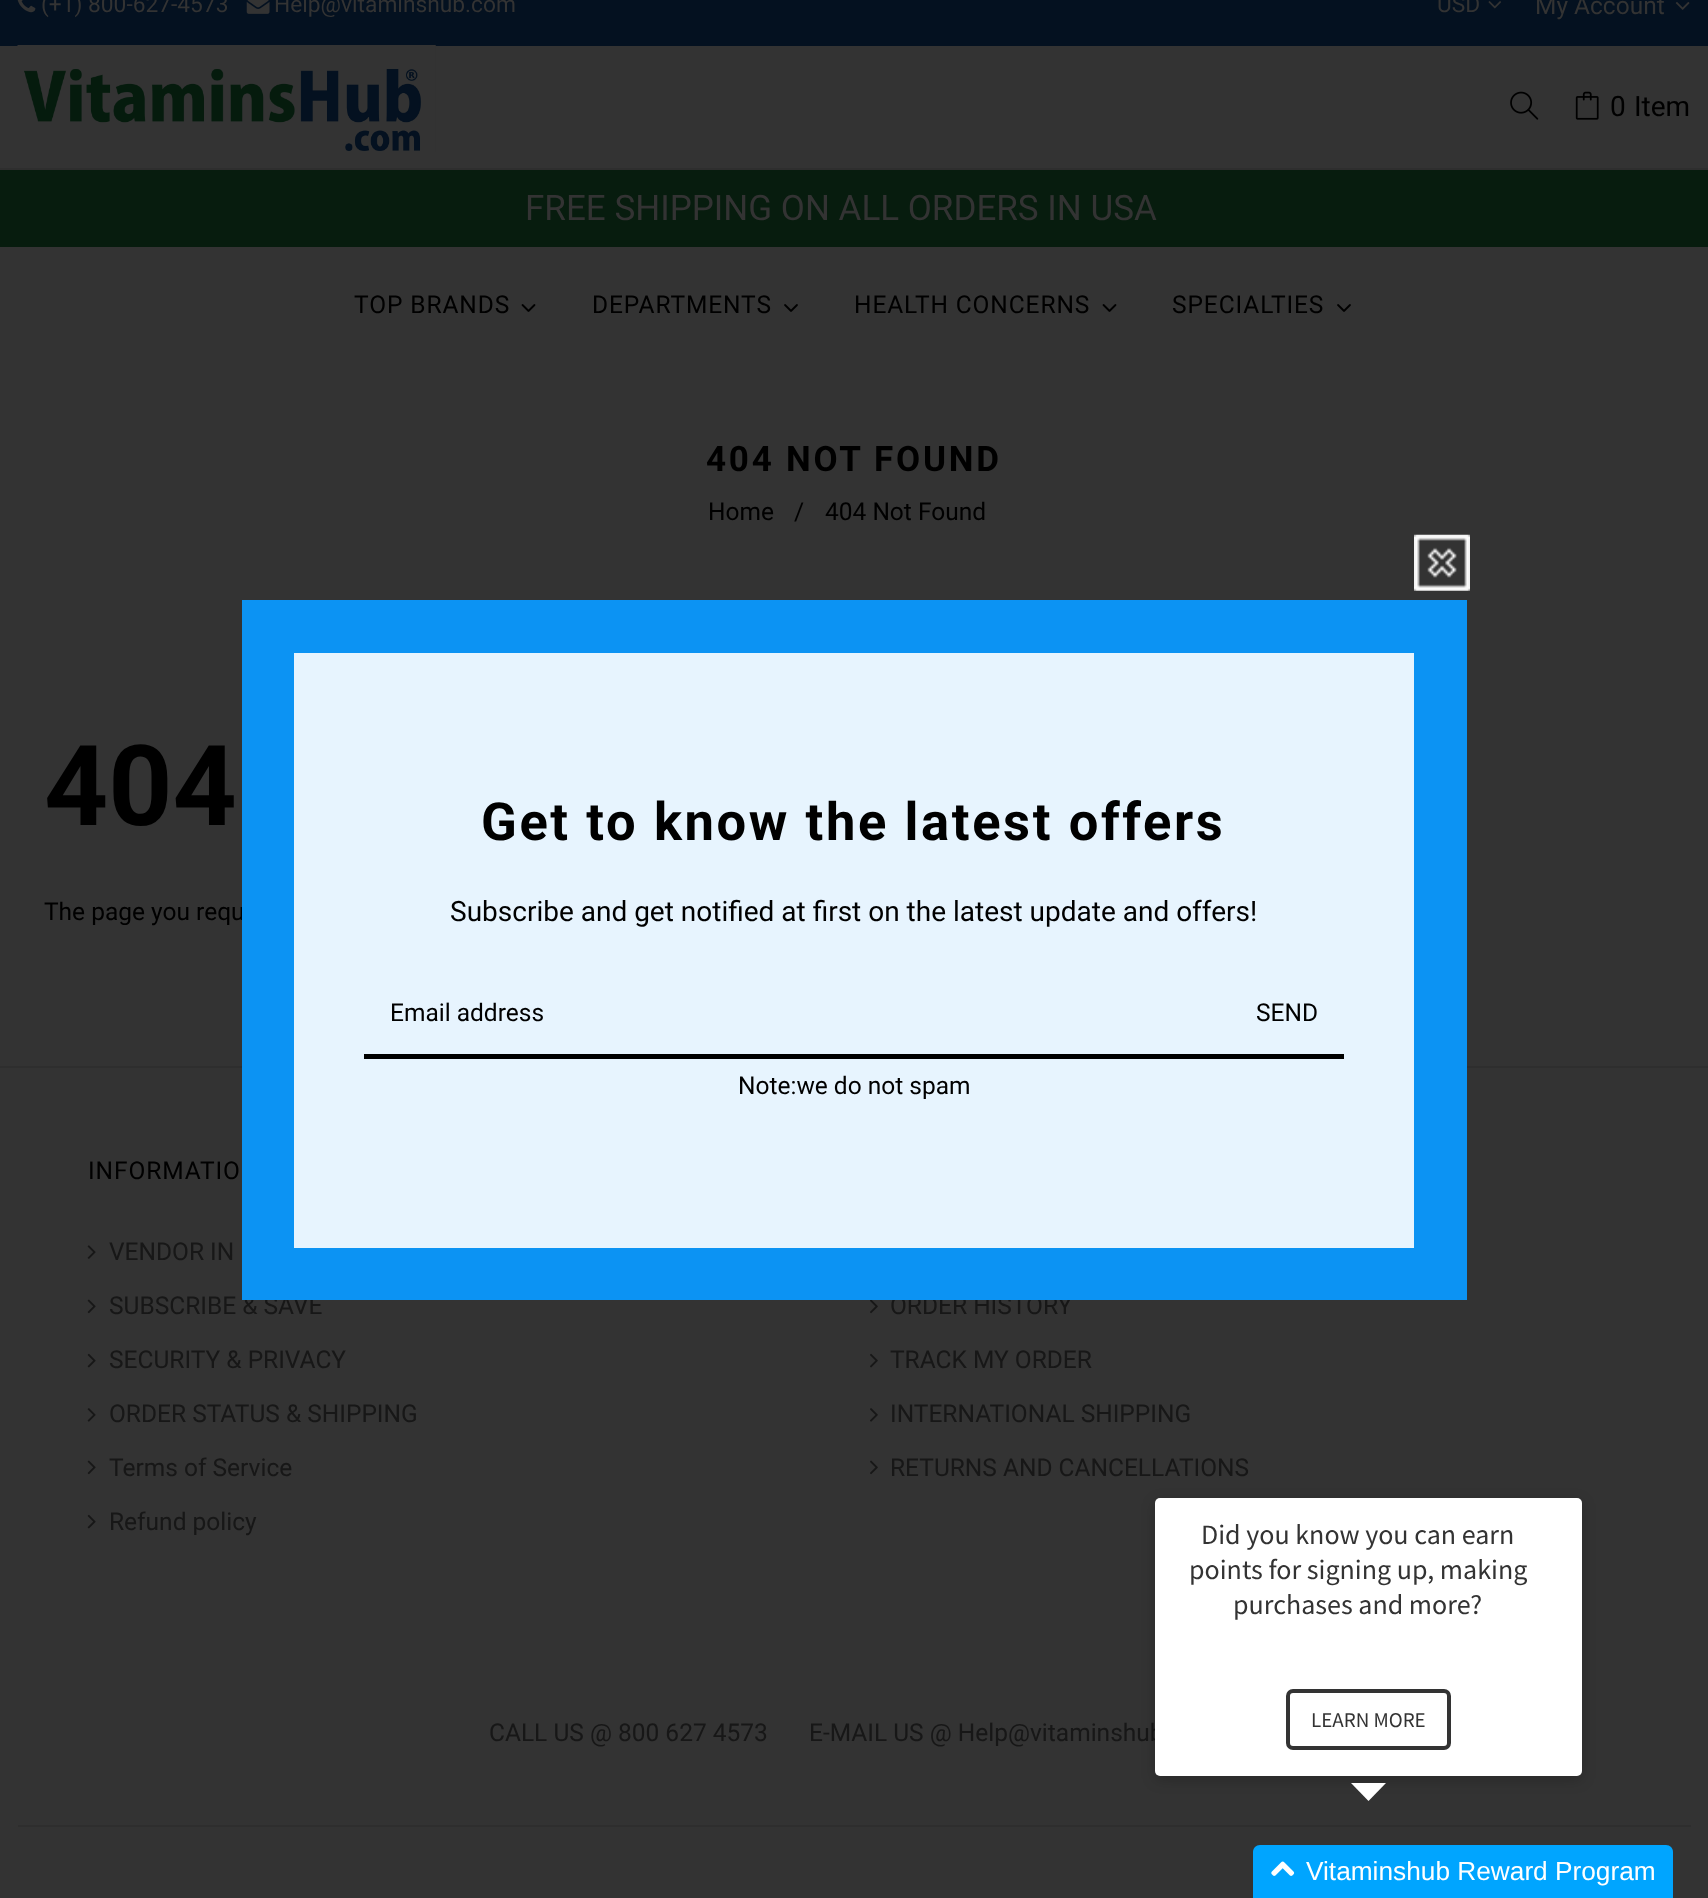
<!DOCTYPE html>
<meta charset="utf-8">
<style>body { margin: 0 } canvas { display: block }</style>
<canvas id="canvas" width="1708" height="1898"></canvas>
<script type="module">
  const canvas = document.getElementById("canvas");
  const g = canvas.getContext("2d");
  g.miterLimit = 4;
  g.fontKerning = "normal";
  function drawText(s, x, y, [font, color]) {
    g.font = font;
    g.fillStyle = color;
    g.fillText(s, x, y);
  }
  function fillBox(x, y, w, h, color) {
    g.fillStyle = color;
    g.fillRect(x, y, w, h);
  }
  function fillRounded(x, y, w, h, r, color) {
    g.fillStyle = color;
    g.beginPath();
    g.roundRect(x, y, w, h, r);
    g.fill();
  }
  async function drawPicture(src, x, y, w, h) {
    const img = new Image();
    img.src = src;
    await img.decode();
    g.drawImage(img, x, y, w, h);
  }

  const s1 = ["22.75px Roboto", "#333333"];
  const s2 = ["24.5px Roboto", "#333333"];
  const s3 = ["28px Roboto", "#000000"];
  const s4 = ["35px Roboto", "#333333"];
  const s5 = ["24.5px Roboto", "#000000"];
  const s6 = ["bold 35px Roboto", "#000000"];
  const s7 = ["bold 112px Roboto", "#000000"];
  const s8 = ["24.5px Roboto", "#171717"];
  const s9 = ["bold 52.5px Roboto", "#000000"];
  const s10 = ["28px Source Sans Pro", "#333333"];
  const s11 = ["21px Source Sans Pro", "#333333"];
  const s12 = ["26.25px Liberation Sans", "#FFFFFF"];

  fillBox(0, 0, 1708, 1898, "#333333");
  fillBox(0, 0, 1708, 46, "#041120");
  await drawPicture("pic1.png", 17, 0, 19, 13);
  drawText("(+1) 800-627-4573", 41, 12, s1);
  await drawPicture("pic2.png", 246, 0, 24, 14);
  drawText("Help@vitaminshub.com", 274, 12, s1);
  drawText("USD", 1437, 12, s1);
  await drawPicture("pic3.png", 1488, 1, 14, 8);
  drawText("My Account", 1535, 14, s2);
  await drawPicture("pic4.png", 1675, 2, 15, 8);
  fillBox(0, 168, 1708, 2, "#2E2E2E");
  await drawPicture("pic5.png", 17, 45, 419, 107);
  await drawPicture("pic6.png", 1510, 91, 29, 29);
  await drawPicture("pic7.png", 1575, 91, 24, 29);
  drawText("0", 1610, 116, s3);
  drawText("Item", 1634, 116, s3);
  fillBox(0, 170, 1708, 77, "#071C0E");
  drawText("FREE SHIPPING ON ALL ORDERS IN USA", 525, 220, s4);
  g.letterSpacing = "0.9px";
  drawText("TOP BRANDS", 354, 313, s5);
  await drawPicture("pic8.png", 521, 304, 15, 8);
  drawText("DEPARTMENTS", 592, 313, s5);
  await drawPicture("pic9.png", 784, 304, 14, 8);
  drawText("HEALTH CONCERNS", 854, 313, s5);
  await drawPicture("pic8.png", 1102, 304, 15, 8);
  drawText("SPECIALTIES", 1172, 313, s5);
  await drawPicture("pic9.png", 1337, 304, 14, 8);
  g.letterSpacing = "2.75px";
  drawText("404 NOT FOUND", 706, 471, s6);
  g.letterSpacing = "0px";
  drawText("Home", 708, 520, s5);
  drawText("/", 794, 520, s5);
  drawText("404 Not Found", 825, 520, s5);
  drawText("404", 44, 825, s7);
  drawText("The page you requ", 44, 920, s5);
  fillBox(0, 1066, 1708, 2, "#2E2E2E");
  drawText("SUBSCRIBE & SAVE", 109, 1314, s8);
  drawText("ORDER HISTORY", 890, 1314, s8);
  fillBox(242, 600, 1225, 700, "#0C93F3");
  await drawPicture("pic10.png", 1414, 534, 56, 57);
  fillBox(294, 653, 1120, 595, "#E7F4FE");
  g.letterSpacing = "2.6px";
  drawText("Get to know the latest offers", 481, 840, s9);
  g.letterSpacing = "0px";
  drawText("Subscribe and get notified at first on the latest update and offers!", 450, 921, s3);
  fillBox(364, 1054, 980, 5, "#000000");
  drawText("Email address", 390, 1021, s5);
  drawText("SEND", 1256, 1021, s5);
  drawText("Note:we do not spam", 738, 1094, s5);
  g.letterSpacing = "0.9px";
  drawText("INFORMATIO", 88, 1179, s5);
  await drawPicture("pic11.png", 87, 1245, 9, 14);
  g.letterSpacing = "0px";
  drawText("VENDOR IN", 109, 1260, s8);
  await drawPicture("pic12.png", 87, 1299, 9, 15);
  await drawPicture("pic13.png", 87, 1353, 9, 15);
  drawText("SECURITY & PRIVACY", 109, 1368, s8);
  await drawPicture("pic14.png", 87, 1408, 9, 14);
  drawText("ORDER STATUS & SHIPPING", 109, 1422, s8);
  await drawPicture("pic12.png", 87, 1460, 9, 15);
  drawText("Terms of Service", 109, 1476, s8);
  await drawPicture("pic13.png", 87, 1514, 9, 15);
  drawText("Refund policy", 109, 1530, s8);
  await drawPicture("pic15.png", 870, 1300, 8, 14);
  await drawPicture("pic16.png", 870, 1353, 8, 15);
  drawText("TRACK MY ORDER", 890, 1368, s8);
  await drawPicture("pic17.png", 870, 1408, 8, 14);
  drawText("INTERNATIONAL SHIPPING", 890, 1422, s8);
  await drawPicture("pic18.png", 870, 1460, 8, 15);
  drawText("RETURNS AND CANCELLATIONS", 890, 1476, s8);
  drawText("CALL US @ 800 627 4573", 489, 1741, s8);
  drawText("E-MAIL US @ Help@vitaminshub", 809, 1741, s8);
  fillBox(18, 1825, 1673, 2, "#2E2E2E");
  g.fillStyle = "rgba(0, 0, 0, 0.2)";
  g.filter = "blur(7px)";
  g.beginPath();
  g.roundRect(1155, 1502, 427, 278, 5);
  g.fill();
  g.filter = "none";
  fillRounded(1155, 1498, 427, 278, 5, "#FFFFFF");
  drawText("Did you know you can earn", 1201, 1544, s10);
  drawText("points for signing up, making", 1189, 1579, s10);
  drawText("purchases and more?", 1233, 1614, s10);
  g.beginPath();
  g.roundRect(1288, 1691, 161, 57, 5);
  g.strokeStyle = "#333333";
  g.lineWidth = 4;
  g.stroke();
  drawText("LEARN MORE", 1311, 1727, s11);
  g.fillStyle = "#FFFFFF";
  g.beginPath();
  g.moveTo(1351, 1783);
  g.lineTo(1386, 1783);
  g.lineTo(1368.5, 1801);
  g.closePath();
  g.fill();
  g.fillStyle = "#00A5FF";
  g.beginPath();
  g.moveTo(1260, 1845);
  g.lineTo(1666, 1845);
  g.bezierCurveTo(1670, 1845, 1673, 1848, 1673, 1852);
  g.lineTo(1673, 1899);
  g.lineTo(1253, 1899);
  g.lineTo(1253, 1852);
  g.bezierCurveTo(1253, 1848, 1256, 1845, 1260, 1845);
  g.closePath();
  g.fill();
  await drawPicture("pic19.png", 1271, 1861, 24, 15);
  drawText("Vitaminshub Reward Program", 1306, 1880, s12);
</script>
